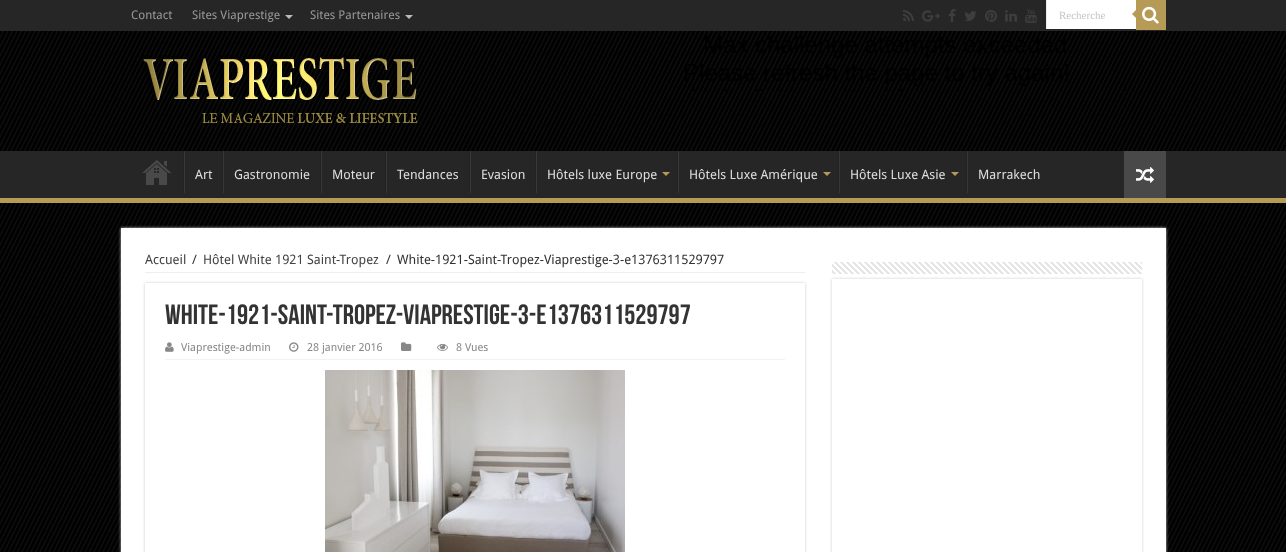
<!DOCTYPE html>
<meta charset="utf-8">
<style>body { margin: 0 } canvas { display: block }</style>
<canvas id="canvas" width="1286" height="552"></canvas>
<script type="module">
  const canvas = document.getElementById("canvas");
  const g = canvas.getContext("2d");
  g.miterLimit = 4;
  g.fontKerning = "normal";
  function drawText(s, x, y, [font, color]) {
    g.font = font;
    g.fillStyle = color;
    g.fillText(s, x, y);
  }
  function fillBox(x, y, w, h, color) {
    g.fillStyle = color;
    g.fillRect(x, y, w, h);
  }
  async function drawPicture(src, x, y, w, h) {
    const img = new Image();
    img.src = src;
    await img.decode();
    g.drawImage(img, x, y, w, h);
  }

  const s1 = ["12px Droid Sans", "#999999"];
  const s2 = ["11px Liberation Serif", "#C5C5C5"];
  const s3 = ["13px Droid Sans", "#DDDDDD"];
  const s4 = ["13px Droid Sans", "#444444"];
  const s5 = ["13px Droid Sans", "#333333"];
  const s6 = ["bold 28px Bebas Neue", "#333333"];
  const s7 = ["11px Droid Sans", "#888888"];

  fillBox(0, 0, 1286, 552, "#FFFFFF");
  await drawPicture("pic1.png", 0, 203, 1286, 349);
  await drawPicture("pic2.png", 0, 31, 1286, 120);
  fillBox(0, 0, 1286, 31, "#262626");
  drawText("Contact", 131, 19, s1);
  drawText("Sites Viaprestige", 192, 19, s1);
  g.fillStyle = "#BBBBBB";
  g.beginPath();
  g.moveTo(285, 15);
  g.lineTo(293, 15);
  g.lineTo(289, 19);
  g.closePath();
  g.fill();
  drawText("Sites Partenaires", 310, 19, s1);
  g.fillStyle = "#BBBBBB";
  g.beginPath();
  g.moveTo(405, 15);
  g.lineTo(413, 15);
  g.lineTo(409, 19);
  g.closePath();
  g.fill();
  await drawPicture("pic3.png", 903, 10, 11, 11);
  await drawPicture("pic4.png", 922, 10, 18, 12);
  await drawPicture("pic5.png", 948, 9, 8, 13);
  await drawPicture("pic6.png", 965, 11, 12, 10);
  await drawPicture("pic7.png", 985, 10, 12, 12);
  await drawPicture("pic8.png", 1005, 10, 12, 12);
  await drawPicture("pic9.png", 1025, 9, 12, 14);
  fillBox(1047, 0, 89, 29, "#FFFFFF");
  fillBox(1046, 0, 1, 29, "#ECECEC");
  drawText("Recherche", 1059, 19, s2);
  fillBox(1136, 0, 30, 30, "#B69B57");
  await drawPicture("pic10.png", 1142, 6, 17, 18);
  g.beginPath();
  g.moveTo(1136, 10);
  g.lineTo(1136, 18);
  g.lineTo(1132, 14);
  g.closePath();
  g.fill();
  await drawPicture("pic11.png", 142, 55, 276, 68);
  await drawPicture("pic12.png", 685, 36, 441, 55);
  fillBox(0, 151, 1286, 47, "#262626");
  fillBox(0, 198, 1286, 5, "#B69B57");
  await drawPicture("pic13.png", 142, 160, 29, 25);
  fillBox(183, 151, 1, 42, "#222222");
  fillBox(184, 151, 1, 42, "#383838");
  drawText("Art", 195, 179, s3);
  fillBox(222, 151, 1, 42, "#222222");
  fillBox(223, 151, 1, 42, "#383838");
  drawText("Gastronomie", 234, 179, s3);
  fillBox(320, 151, 1, 42, "#222222");
  fillBox(321, 151, 1, 42, "#383838");
  drawText("Moteur", 332, 179, s3);
  fillBox(385, 151, 1, 42, "#222222");
  fillBox(386, 151, 1, 42, "#383838");
  drawText("Tendances", 397, 179, s3);
  fillBox(469, 151, 1, 42, "#222222");
  fillBox(470, 151, 1, 42, "#383838");
  drawText("Evasion", 481, 179, s3);
  fillBox(535, 151, 1, 42, "#222222");
  fillBox(536, 151, 1, 42, "#383838");
  drawText("Hôtels luxe Europe", 547, 179, s3);
  g.fillStyle = "#B69B57";
  g.beginPath();
  g.moveTo(662, 172);
  g.lineTo(670, 172);
  g.lineTo(666, 176);
  g.closePath();
  g.fill();
  fillBox(677, 151, 1, 42, "#222222");
  fillBox(678, 151, 1, 42, "#383838");
  drawText("Hôtels Luxe Amérique", 689, 179, s3);
  g.fillStyle = "#B69B57";
  g.beginPath();
  g.moveTo(823, 172);
  g.lineTo(831, 172);
  g.lineTo(827, 176);
  g.closePath();
  g.fill();
  fillBox(838, 151, 1, 42, "#222222");
  fillBox(839, 151, 1, 42, "#383838");
  drawText("Hôtels Luxe Asie", 850, 179, s3);
  g.fillStyle = "#B69B57";
  g.beginPath();
  g.moveTo(951, 172);
  g.lineTo(959, 172);
  g.lineTo(955, 176);
  g.closePath();
  g.fill();
  fillBox(966, 151, 1, 42, "#222222");
  fillBox(967, 151, 1, 42, "#383838");
  drawText("Marrakech", 978, 179, s3);
  fillBox(1124, 151, 42, 47, "#494949");
  await drawPicture("pic14.png", 1136, 166, 18, 17);
  g.fillStyle = "#CACACA";
  g.filter = "blur(1.5px)";
  g.beginPath();
  g.rect(121, 228, 1045, 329);
  g.fill();
  g.filter = "none";
  fillBox(121, 228, 1045, 324, "#FFFFFF");
  fillBox(145, 272, 660, 1, "#EEEEEE");
  drawText("Accueil", 145, 264, s4);
  drawText("/", 192, 264, s5);
  drawText("Hôtel White 1921 Saint-Tropez", 203, 264, s4);
  drawText("/", 386, 264, s5);
  drawText("White-1921-Saint-Tropez-Viaprestige-3-e1376311529797", 397, 264, s5);
  g.save();
  g.beginPath();
  g.moveTo(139, 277);
  g.lineTo(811, 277);
  g.lineTo(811, 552);
  g.lineTo(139, 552);
  g.closePath();
  g.moveTo(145, 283);
  g.lineTo(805, 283);
  g.lineTo(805, 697);
  g.lineTo(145, 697);
  g.closePath();
  g.clip("evenodd");
  g.fillStyle = "#CACACA";
  g.filter = "blur(1.5px)";
  g.beginPath();
  g.rect(145, 283, 660, 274);
  g.fill();
  g.filter = "none";
  g.restore();
  drawText("White-1921-Saint-Tropez-Viaprestige-3-e1376311529797", 165, 324, s6);
  fillBox(165, 359, 620, 1, "#F2F2F2");
  await drawPicture("pic15.png", 165, 342, 9, 10);
  drawText("Viaprestige-admin", 181, 351, s7);
  await drawPicture("pic16.png", 289, 342, 10, 10);
  drawText("28 janvier 2016", 307, 351, s7);
  await drawPicture("pic17.png", 401, 342, 11, 9);
  await drawPicture("pic18.png", 437, 343, 11, 8);
  drawText("8 Vues", 456, 351, s7);
  await drawPicture("pic19.png", 325, 370, 300, 182);
  g.save();
  g.beginPath();
  g.moveTo(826, 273);
  g.lineTo(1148, 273);
  g.lineTo(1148, 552);
  g.lineTo(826, 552);
  g.closePath();
  g.moveTo(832, 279);
  g.lineTo(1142, 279);
  g.lineTo(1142, 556);
  g.lineTo(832, 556);
  g.closePath();
  g.clip("evenodd");
  g.fillStyle = "#CACACA";
  g.filter = "blur(1.5px)";
  g.beginPath();
  g.rect(832, 279, 310, 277);
  g.fill();
  g.filter = "none";
  g.restore();
  await drawPicture("pic20.png", 832, 262, 310, 12);
</script>
